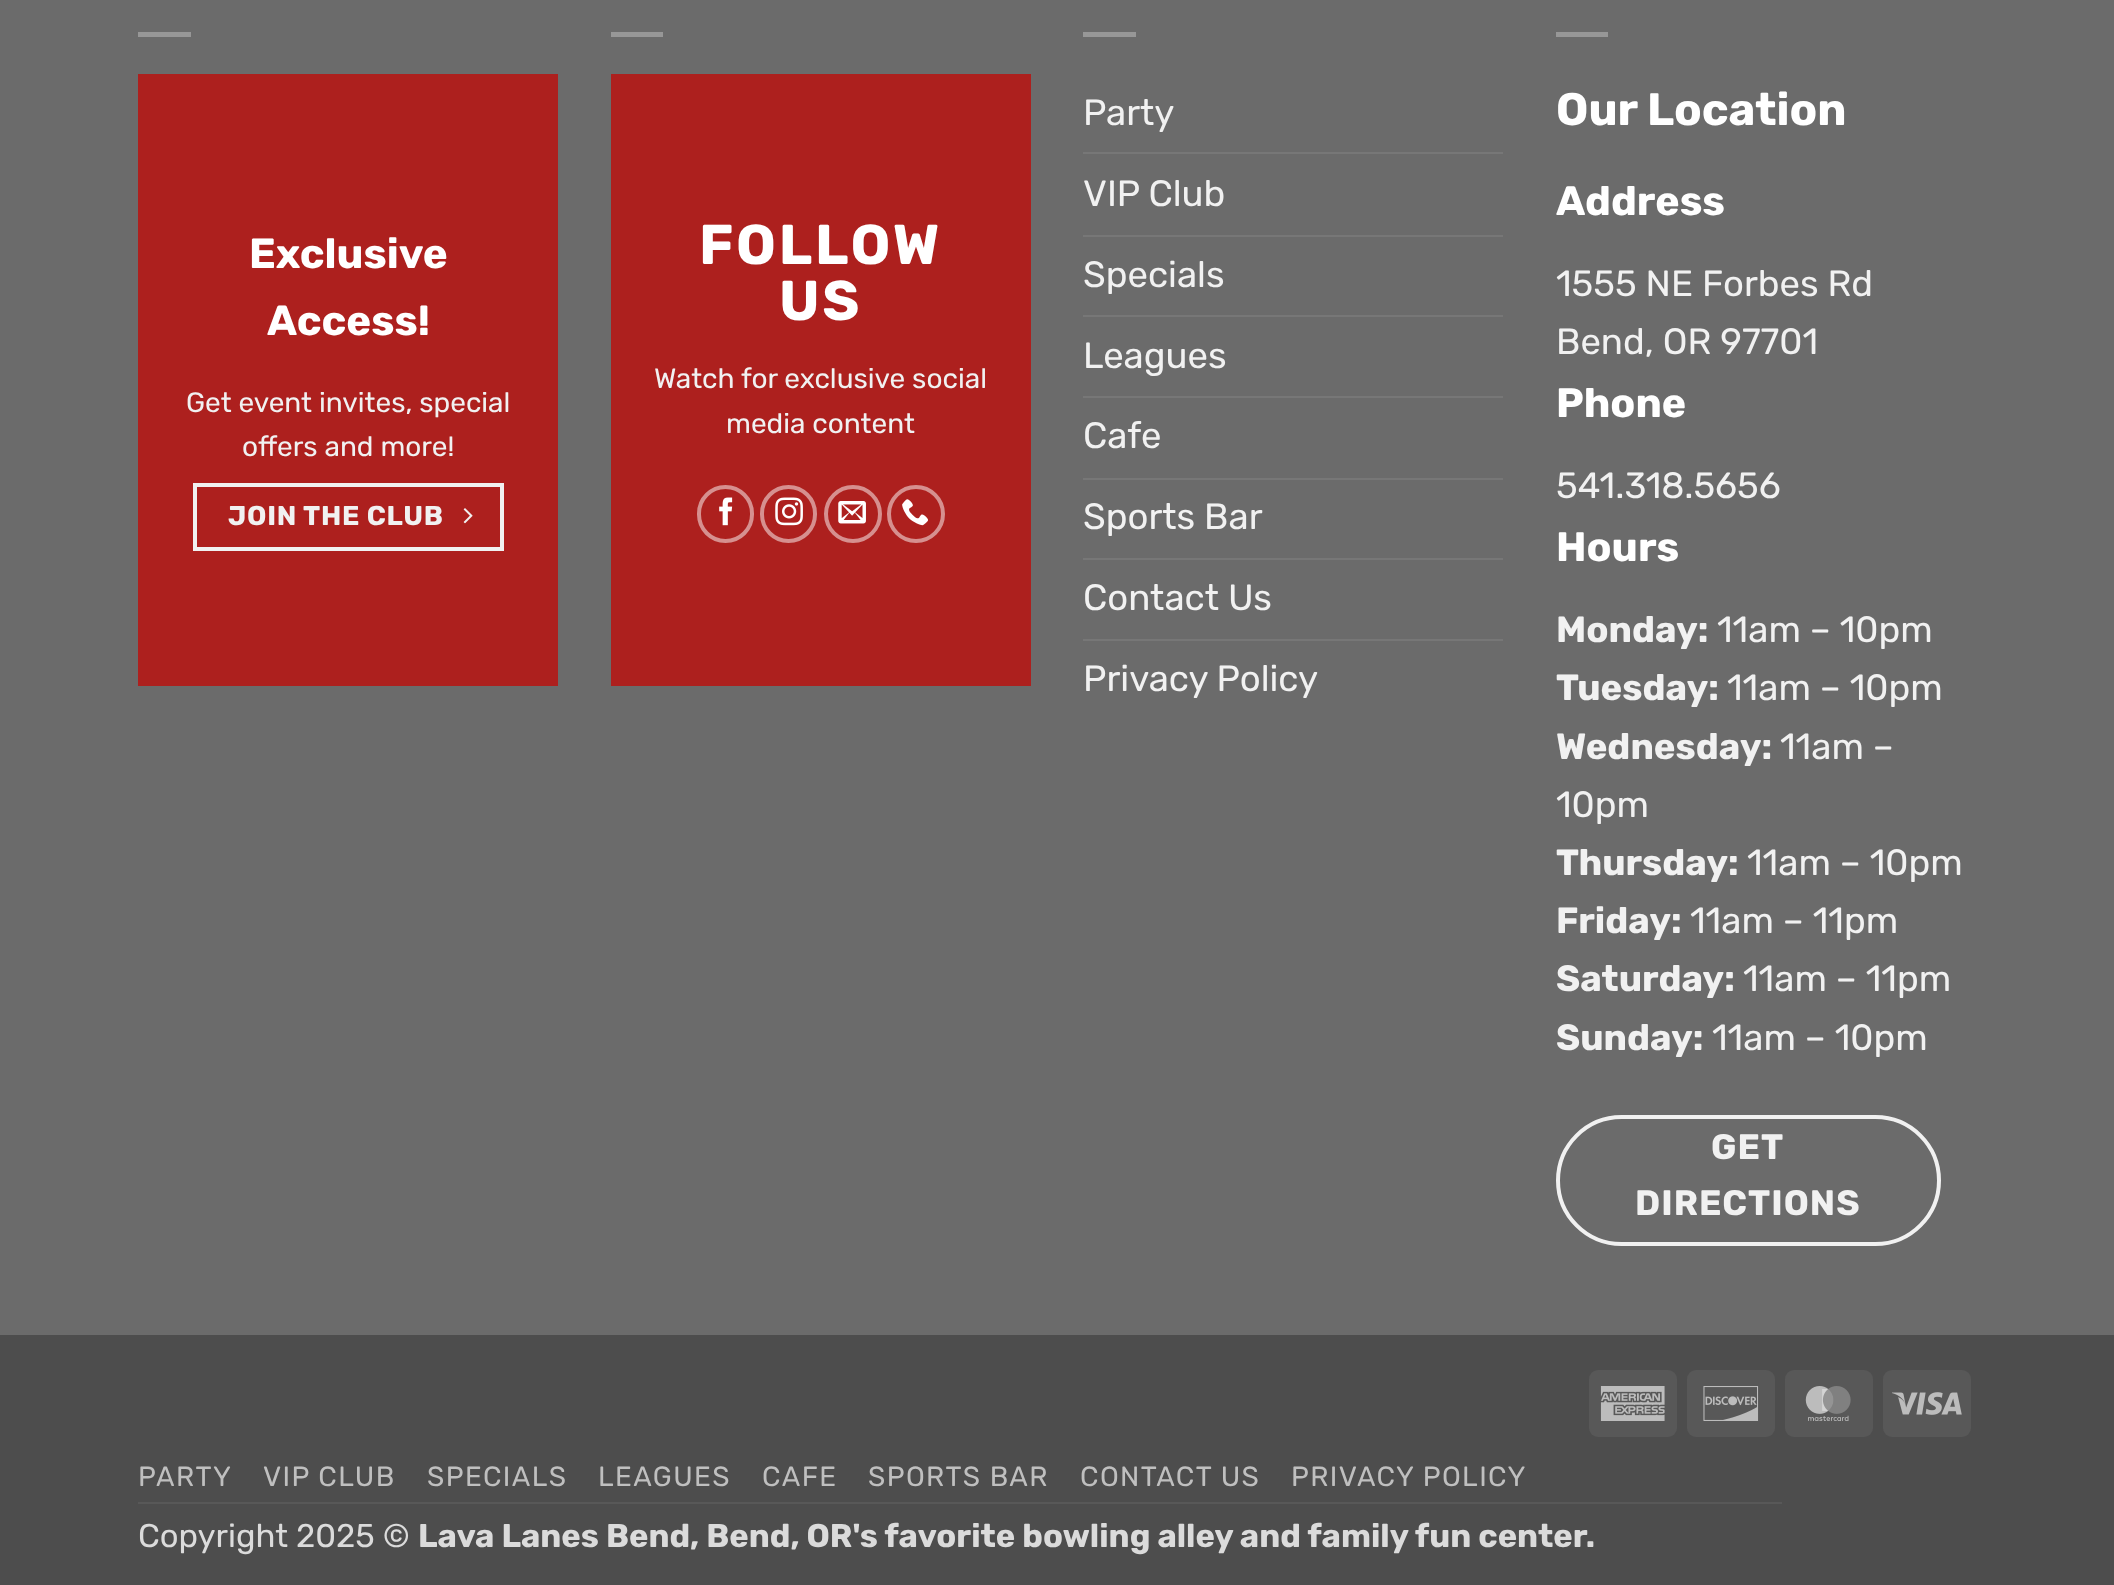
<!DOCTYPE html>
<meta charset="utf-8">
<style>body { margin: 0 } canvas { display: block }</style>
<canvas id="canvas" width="2114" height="1585"></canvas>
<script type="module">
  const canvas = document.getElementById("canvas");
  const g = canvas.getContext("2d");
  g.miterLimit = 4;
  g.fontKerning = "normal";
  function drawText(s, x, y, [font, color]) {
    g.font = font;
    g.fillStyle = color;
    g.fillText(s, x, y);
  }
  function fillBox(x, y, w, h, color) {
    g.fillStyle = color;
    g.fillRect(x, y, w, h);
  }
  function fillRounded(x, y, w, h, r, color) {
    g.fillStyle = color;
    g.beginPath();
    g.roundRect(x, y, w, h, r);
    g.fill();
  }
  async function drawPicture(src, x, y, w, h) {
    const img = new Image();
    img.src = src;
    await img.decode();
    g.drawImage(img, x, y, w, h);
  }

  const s1 = ["bold 42px Rubik", "#FFFFFF"];
  const s2 = ["28px Rubik", "#F1F1F1"];
  const s3 = ["bold 27.25px Rubik", "#F1F1F1"];
  const s4 = ["bold 56px Rubik", "#FFFFFF"];
  const s5 = ["36.5px Rubik", "#F1F1F1"];
  const s6 = ["bold 45.5px Rubik", "#FFFFFF"];
  const s7 = ["bold 41px Rubik", "#FFFFFF"];
  const s8 = ["bold 36.5px Rubik", "#F1F1F1"];
  const s9 = ["bold 35.25px Rubik", "#F1F1F1"];
  const s10 = ["27.75px Rubik", "#BFBFBF"];
  const s11 = ["32.75px Rubik", "#DBDBDB"];
  const s12 = ["bold 32.75px Rubik", "#DBDBDB"];

  fillBox(0, 0, 2114, 1585, "#6B6B6B");
  fillBox(138, 32, 53, 5, "#979797");
  fillBox(138, 74, 420, 612, "#AD201E");
  drawText("Exclusive", 249, 268, s1);
  drawText("Access!", 267, 335, s1);
  drawText("Get event invites, special", 186, 412, s2);
  drawText("offers and more!", 242, 456, s2);
  g.strokeStyle = "#F1F1F1";
  g.lineWidth = 4;
  g.strokeRect(195, 485, 307, 64);
  g.letterSpacing = "0.75px";
  drawText("JOIN THE CLUB", 228, 525, s3);
  await drawPicture("pic1.png", 463, 508, 10, 16);
  fillBox(611, 32, 52, 5, "#979797");
  fillBox(611, 74, 420, 612, "#AD201E");
  g.letterSpacing = "2.75px";
  drawText("FOLLOW", 699, 264, s4);
  drawText("US", 779, 320, s4);
  g.letterSpacing = "0px";
  drawText("Watch for exclusive social", 654, 388, s2);
  drawText("media content", 726, 433, s2);
  g.beginPath();
  g.roundRect(699, 487, 53, 54, 26.5);
  g.strokeStyle = "#D6908F";
  g.stroke();
  await drawPicture("pic2.png", 719, 497, 14, 29);
  g.beginPath();
  g.roundRect(762, 487, 53, 54, 26.5);
  g.stroke();
  await drawPicture("pic3.png", 775, 497, 28, 29);
  g.beginPath();
  g.arc(853, 514, 27, 0, Math.PI * 2);
  g.stroke();
  await drawPicture("pic4.png", 838, 501, 28, 23);
  g.beginPath();
  g.arc(916, 514, 27, 0, Math.PI * 2);
  g.stroke();
  await drawPicture("pic5.png", 902, 499, 26, 27);
  fillBox(1083, 32, 53, 5, "#979797");
  drawText("Party", 1083, 125, s5);
  fillBox(1083, 152, 420, 2, "#777777");
  drawText("VIP Club", 1083, 206, s5);
  fillBox(1083, 235, 420, 2, "#777777");
  drawText("Specials", 1083, 287, s5);
  fillBox(1083, 315, 420, 2, "#777777");
  drawText("Leagues", 1083, 368, s5);
  fillBox(1083, 396, 420, 2, "#777777");
  drawText("Cafe", 1083, 448, s5);
  fillBox(1083, 478, 420, 2, "#777777");
  drawText("Sports Bar", 1083, 529, s5);
  fillBox(1083, 558, 420, 2, "#777777");
  drawText("Contact Us", 1083, 610, s5);
  fillBox(1083, 639, 420, 2, "#777777");
  drawText("Privacy Policy", 1083, 691, s5);
  fillBox(1556, 32, 52, 5, "#979797");
  drawText("Our Location", 1556, 125, s6);
  drawText("Address", 1556, 215, s7);
  drawText("1555 NE Forbes Rd", 1556, 296, s5);
  drawText("Bend, OR 97701", 1556, 354, s5);
  drawText("Phone", 1556, 417, s7);
  drawText("541.318.5656", 1556, 498, s5);
  drawText("Hours", 1556, 561, s7);
  drawText("Monday:", 1556, 642, s8);
  drawText("11am – 10pm", 1717, 642, s5);
  drawText("Tuesday:", 1556, 700, s8);
  drawText("11am – 10pm", 1727, 700, s5);
  drawText("Wednesday:", 1556, 759, s8);
  drawText("11am –", 1780, 759, s5);
  drawText("10pm", 1556, 817, s5);
  drawText("Thursday:", 1556, 875, s8);
  drawText("11am – 10pm", 1747, 875, s5);
  drawText("Friday:", 1556, 933, s8);
  drawText("11am – 11pm", 1690, 933, s5);
  drawText("Saturday:", 1556, 991, s8);
  drawText("11am – 11pm", 1743, 991, s5);
  drawText("Sunday:", 1556, 1050, s8);
  drawText("11am – 10pm", 1712, 1050, s5);
  g.beginPath();
  g.roundRect(1558, 1117, 381, 127, 63.5);
  g.strokeStyle = "#F1F1F1";
  g.stroke();
  g.letterSpacing = "1px";
  drawText("GET", 1711, 1159, s9);
  drawText("DIRECTIONS", 1635, 1215, s9);
  fillBox(0, 1335, 2114, 250, "#4D4D4D");
  fillRounded(1589, 1370, 88, 67, 9, "#585858");
  await drawPicture("pic6.png", 1600, 1386, 65, 35);
  fillRounded(1687, 1370, 88, 67, 9, "#585858");
  await drawPicture("pic7.png", 1703, 1386, 56, 35);
  fillRounded(1785, 1370, 88, 67, 9, "#585858");
  await drawPicture("pic8.png", 1805, 1386, 46, 35);
  fillRounded(1883, 1370, 88, 67, 9, "#585858");
  await drawPicture("pic9.png", 1892, 1392, 70, 23);
  fillBox(138, 1502, 1644, 2, "#585858");
  g.letterSpacing = "1.4px";
  drawText("PARTY", 138, 1486, s10);
  drawText("VIP CLUB", 263, 1486, s10);
  drawText("SPECIALS", 427, 1486, s10);
  drawText("LEAGUES", 598, 1486, s10);
  drawText("CAFE", 762, 1486, s10);
  drawText("SPORTS BAR", 868, 1486, s10);
  drawText("CONTACT US", 1080, 1486, s10);
  drawText("PRIVACY POLICY", 1291, 1486, s10);
  g.letterSpacing = "0px";
  drawText("Copyright 2025 ©", 138, 1547, s11);
  drawText("Lava Lanes Bend, Bend, OR's favorite bowling alley and family fun center.", 418, 1547, s12);
</script>
